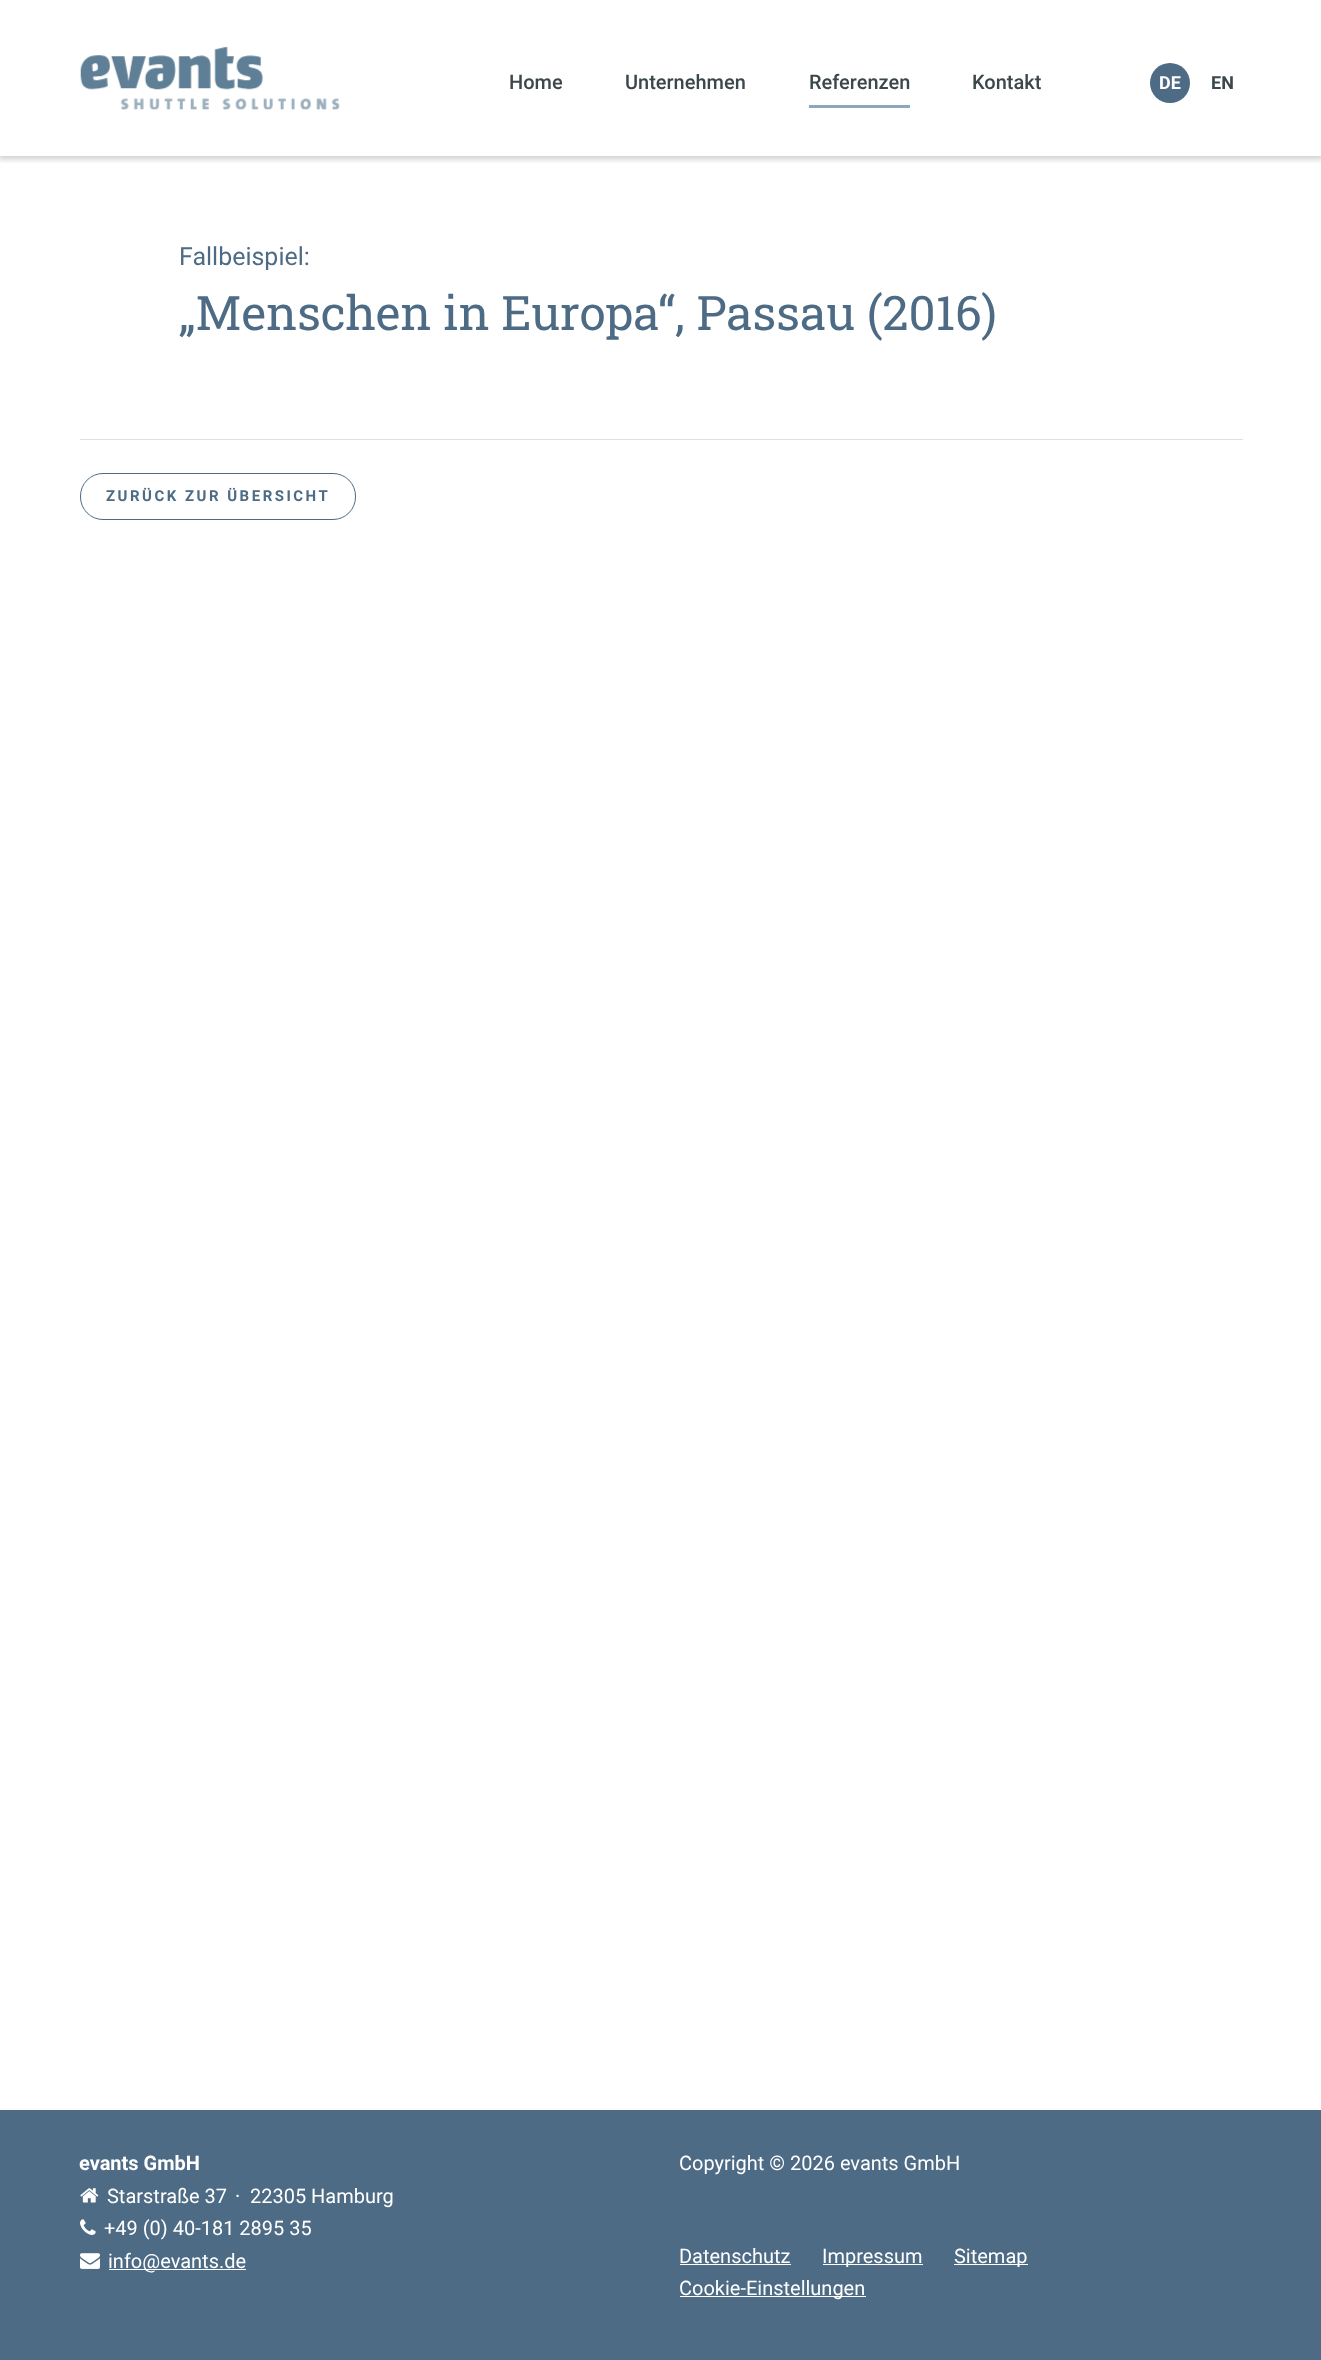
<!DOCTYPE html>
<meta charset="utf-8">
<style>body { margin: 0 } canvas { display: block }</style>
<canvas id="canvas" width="1321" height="2360"></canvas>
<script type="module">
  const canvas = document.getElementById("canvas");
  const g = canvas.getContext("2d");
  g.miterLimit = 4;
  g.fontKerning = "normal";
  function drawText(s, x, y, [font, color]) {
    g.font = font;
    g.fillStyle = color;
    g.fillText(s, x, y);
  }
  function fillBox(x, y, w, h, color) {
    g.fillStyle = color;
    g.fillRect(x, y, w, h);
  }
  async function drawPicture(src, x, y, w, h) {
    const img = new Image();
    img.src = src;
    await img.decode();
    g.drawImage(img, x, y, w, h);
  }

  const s1 = ["500 20px Roboto", "#3C474B"];
  const s2 = ["bold 18px Roboto", "#FFFFFF"];
  const s3 = ["bold 18px Roboto", "#3C474B"];
  const s4 = ["25px Roboto", "#4D6B84"];
  const s5 = ["47.5px Roboto Slab", "#4D6B84"];
  const s6 = ["bold 15px Roboto", "#4D6B84"];
  const s7 = ["bold 20px Roboto", "#FFFFFF"];
  const s8 = ["20px Roboto", "#FFFFFF"];

  fillBox(0, 0, 1321, 2360, "#FFFFFF");
  g.save();
  g.beginPath();
  g.rect(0, 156, 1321, 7);
  g.clip();
  g.fillStyle = "rgba(0, 0, 0, 0.2)";
  g.filter = "blur(3px)";
  g.beginPath();
  g.rect(-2, -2, 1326, 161);
  g.fill();
  g.filter = "none";
  g.restore();
  await drawPicture("pic1.png", 80, 46, 260, 64);
  drawText("Home", 509, 89, s1);
  drawText("Unternehmen", 625, 89, s1);
  drawText("Referenzen", 809, 89, s1);
  fillBox(809, 105, 101, 3, "#8DA7BE");
  drawText("Kontakt", 972, 89, s1);
  g.fillStyle = "#4D6B84";
  g.beginPath();
  g.arc(1170, 83, 20, 0, Math.PI * 2);
  g.fill();
  drawText("DE", 1159, 89, s2);
  drawText("EN", 1211, 89, s3);
  drawText("Fallbeispiel:", 179, 265, s4);
  drawText("„Menschen in Europa“, Passau (2016)", 179, 330, s5);
  fillBox(80, 439, 1163, 1, "#DBE1E6");
  g.beginPath();
  g.roundRect(80.5, 473.5, 275, 46, 22.5);
  g.strokeStyle = "#4D6B84";
  g.stroke();
  g.letterSpacing = "2.5px";
  drawText("ZURÜCK ZUR ÜBERSICHT", 106, 501, s6);
  fillBox(0, 2110, 1321, 250, "#4D6B84");
  g.letterSpacing = "0px";
  drawText("evants GmbH", 79, 2170, s7);
  await drawPicture("pic2.png", 80, 2188, 19, 15);
  drawText("Starstraße 37", 107, 2203, s8);
  drawText("·", 235, 2203, s8);
  drawText("22305 Hamburg", 250, 2203, s8);
  await drawPicture("pic3.png", 80, 2219, 16, 16);
  drawText("+49 (0) 40-181 2895 35", 104, 2235, s8);
  await drawPicture("pic4.png", 80, 2253, 20, 16);
  fillBox(109, 2269, 137, 1, "#FFFFFF");
  drawText("info@evants.de", 108, 2268, s8);
  drawText("Copyright © 2026 evants GmbH", 679, 2170, s8);
  drawText("Datenschutz", 679, 2263, s8);
  fillBox(680, 2264, 111, 1, "#FFFFFF");
  fillBox(823, 2264, 100, 1, "#FFFFFF");
  drawText("Impressum", 822, 2263, s8);
  fillBox(954, 2264, 74, 1, "#FFFFFF");
  drawText("Sitemap", 954, 2263, s8);
  fillBox(680, 2296, 186, 1, "#FFFFFF");
  drawText("Cookie-Einstellungen", 679, 2295, s8);
</script>
